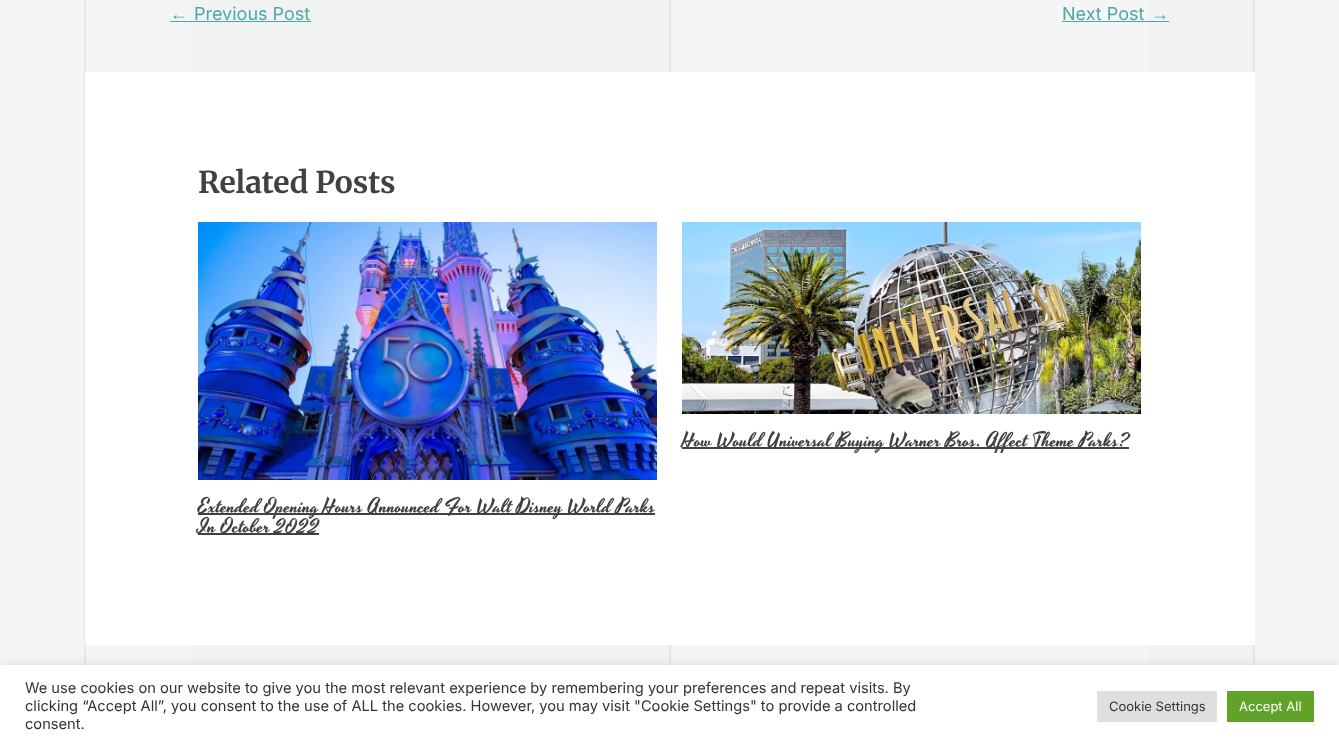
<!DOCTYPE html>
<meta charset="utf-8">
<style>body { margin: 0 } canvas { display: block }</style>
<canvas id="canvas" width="1339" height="747"></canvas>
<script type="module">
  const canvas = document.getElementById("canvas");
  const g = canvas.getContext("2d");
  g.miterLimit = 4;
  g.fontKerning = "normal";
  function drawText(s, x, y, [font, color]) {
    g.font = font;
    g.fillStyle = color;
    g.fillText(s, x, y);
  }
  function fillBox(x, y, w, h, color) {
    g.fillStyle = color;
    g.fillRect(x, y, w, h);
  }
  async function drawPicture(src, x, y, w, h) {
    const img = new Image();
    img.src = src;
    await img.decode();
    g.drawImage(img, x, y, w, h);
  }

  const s1 = ["18px Liberation Sans", "#48A9A6"];
  const s2 = ["18px Inter", "#48A9A6"];
  const s3 = ["300 30px Merriweather", "#414042"];
  const s4 = ["20px Yesteryear", "#414042"];
  const s5 = ["14.67px Inter", "#333333"];
  const s6 = ["13px Inter", "#333333"];
  const s7 = ["13px Inter", "#FFFFFF"];

  fillBox(0, 0, 1339, 747, "#F5F5F5");
  await drawPicture("pic1.png", 84, 0, 1171, 665);
  drawText("←", 170, 20, s1);
  fillBox(170, 21, 141, 1, "#48A9A6");
  drawText("Previous Post", 194, 20, s2);
  drawText("Next Post", 1062, 20, s2);
  fillBox(1062, 21, 107, 1, "#48A9A6");
  drawText("→", 1151, 20, s1);
  fillBox(85, 72, 1170, 573, "#FFFFFF");
  drawText("Related Posts", 198, 193, s3);
  await drawPicture("pic2.png", 682, 222, 459, 192);
  fillBox(682, 447, 447, 2, "#414042");
  drawText("How Would Universal Buying Warner Bros. Affect Theme Parks?", 682, 446, s4);
  await drawPicture("pic3.png", 198, 222, 459, 258);
  fillBox(198, 513, 457, 2, "#414042");
  drawText("Extended Opening Hours Announced For Walt Disney World Parks", 198, 512, s4);
  fillBox(198, 533, 121, 2, "#414042");
  drawText("In October 2022", 198, 532, s4);
  g.fillStyle = "rgba(172, 171, 171, 0.3)";
  g.filter = "blur(5px)";
  g.beginPath();
  g.rect(0, 664, 1339, 82);
  g.fill();
  g.filter = "none";
  fillBox(0, 665, 1339, 82, "#FFFFFF");
  drawText("We use cookies on our website to give you the most relevant experience by remembering your preferences and repeat visits. By", 25, 693, s5);
  drawText("clicking “Accept All”, you consent to the use of ALL the cookies. However, you may visit \"Cookie Settings\" to provide a controlled", 25, 711, s5);
  drawText("consent.", 25, 729, s5);
  fillBox(1097, 691, 120, 31, "#DEDFE0");
  drawText("Cookie Settings", 1109, 711, s6);
  fillBox(1227, 691, 87, 31, "#61A229");
  drawText("Accept All", 1239, 711, s7);
</script>
